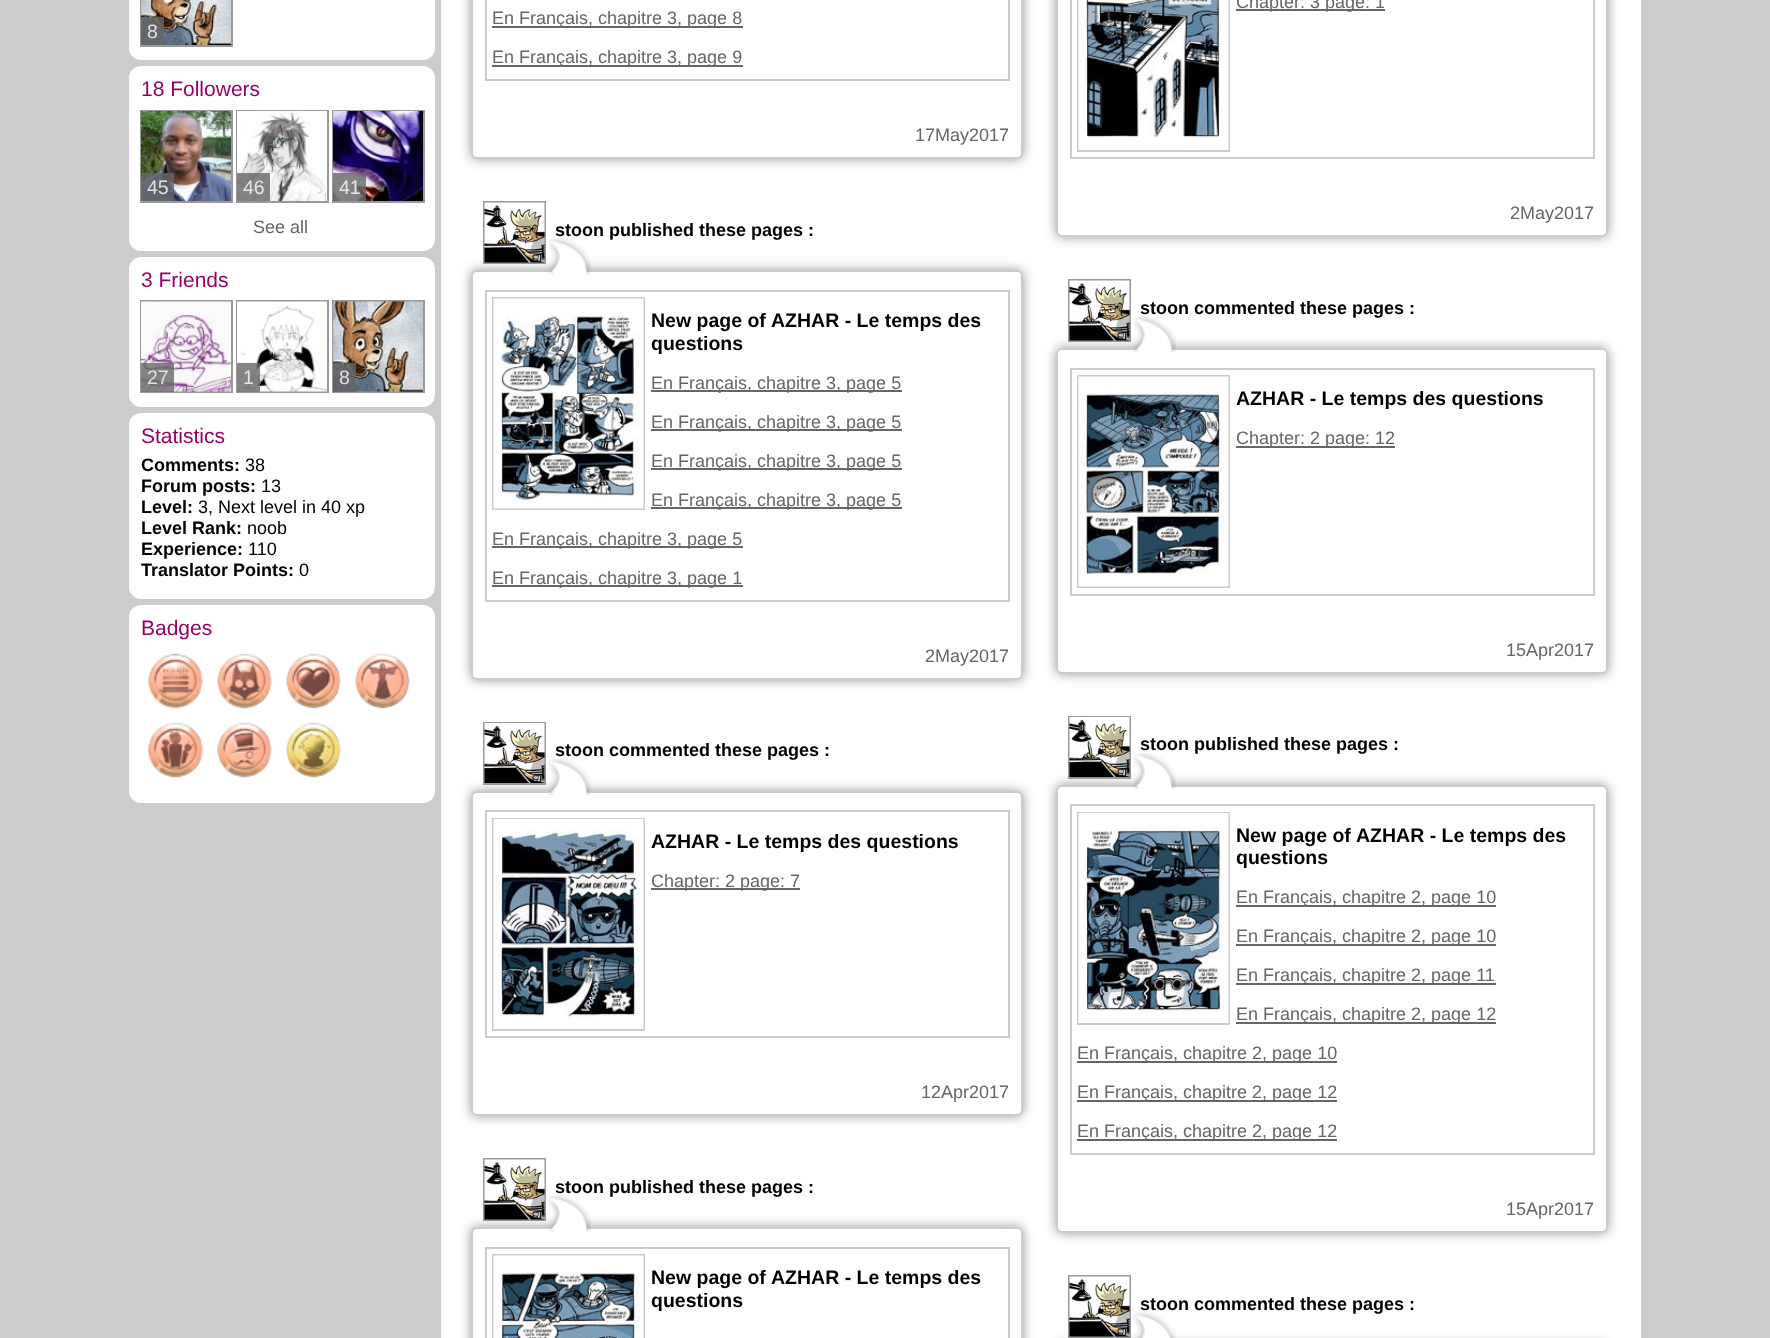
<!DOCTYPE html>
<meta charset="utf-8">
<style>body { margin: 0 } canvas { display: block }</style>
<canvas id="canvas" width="1770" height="1338"></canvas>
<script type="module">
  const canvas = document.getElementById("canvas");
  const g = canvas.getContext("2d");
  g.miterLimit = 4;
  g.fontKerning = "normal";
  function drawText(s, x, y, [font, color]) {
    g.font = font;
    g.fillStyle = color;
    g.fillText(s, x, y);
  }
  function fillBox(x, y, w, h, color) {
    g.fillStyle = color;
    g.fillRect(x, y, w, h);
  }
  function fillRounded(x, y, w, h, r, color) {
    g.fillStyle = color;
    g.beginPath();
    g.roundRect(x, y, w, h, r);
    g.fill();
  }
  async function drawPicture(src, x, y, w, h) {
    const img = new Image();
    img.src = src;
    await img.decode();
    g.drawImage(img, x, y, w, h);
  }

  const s1 = ["19.5px Liberation Sans", "#E0E0E1"];
  const s2 = ["21px Liberation Sans", "#990066"];
  const s3 = ["19.5px Liberation Sans", "#E6E6E6"];
  const s4 = ["18px Liberation Sans", "#666666"];
  const s5 = ["bold 18px Liberation Sans", "#000000"];
  const s6 = ["18px Liberation Sans", "#000000"];
  const s7 = ["bold 19.5px Liberation Sans", "#000000"];

  fillBox(0, 0, 1770, 1338, "#CCCCCC");
  fillRounded(129, -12, 306, 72, 12, "#FFFFFF");
  g.strokeStyle = "#999999";
  g.lineWidth = 2;
  g.strokeRect(141, -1, 91, 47);
  await drawPicture("pic1.png", 141, 0, 90, 45);
  fillBox(141, 17, 23, 28, "rgba(102, 102, 102, 0.8)");
  drawText("8", 147, 38, s1);
  fillRounded(129, 66, 306, 185, 12, "#FFFFFF");
  drawText("18 Followers", 141, 96, s2);
  g.strokeRect(141, 111, 91, 91);
  await drawPicture("pic2.png", 141, 111, 90, 90);
  fillBox(141, 173, 33, 28, "rgba(102, 102, 102, 0.8)");
  drawText("45", 147, 194, s1);
  g.strokeRect(237, 111, 91, 91);
  await drawPicture("pic3.png", 237, 111, 90, 90);
  fillBox(237, 173, 33, 28, "rgba(102, 102, 102, 0.8)");
  drawText("46", 243, 194, s3);
  g.strokeRect(333, 111, 91, 91);
  await drawPicture("pic4.png", 333, 111, 90, 90);
  fillBox(333, 173, 33, 28, "rgba(102, 102, 102, 0.8)");
  drawText("41", 339, 194, s3);
  drawText("See all", 253, 233, s4);
  fillRounded(129, 257, 306, 150, 12, "#FFFFFF");
  drawText("3 Friends", 141, 287, s2);
  g.strokeRect(141, 301, 91, 91);
  await drawPicture("pic5.png", 141, 301, 90, 91);
  fillBox(141, 363, 33, 29, "rgba(102, 102, 102, 0.8)");
  drawText("27", 147, 384, s1);
  g.strokeRect(237, 301, 91, 91);
  await drawPicture("pic6.png", 237, 301, 90, 91);
  fillBox(237, 363, 23, 29, "rgba(102, 102, 102, 0.8)");
  drawText("1", 243, 384, s3);
  g.strokeRect(333, 301, 91, 91);
  await drawPicture("pic7.png", 333, 301, 90, 91);
  fillBox(333, 363, 23, 29, "rgba(102, 102, 102, 0.8)");
  drawText("8", 339, 384, s1);
  fillRounded(129, 413, 306, 186, 12, "#FFFFFF");
  drawText("Statistics", 141, 443, s2);
  drawText("Comments:", 141, 471, s5);
  drawText("38", 245, 471, s6);
  drawText("Forum posts:", 141, 492, s5);
  drawText("13", 261, 492, s6);
  drawText("Level:", 141, 513, s5);
  drawText("3, Next level in 40 xp", 198, 513, s6);
  drawText("Level Rank:", 141, 534, s5);
  drawText("noob", 247, 534, s6);
  drawText("Experience:", 141, 555, s5);
  drawText("110", 248, 555, s6);
  drawText("Translator Points:", 141, 576, s5);
  drawText("0", 299, 576, s6);
  fillRounded(129, 605, 306, 198, 12, "#FFFFFF");
  drawText("Badges", 141, 635, s2);
  await drawPicture("pic8.png", 148, 653, 55, 56);
  await drawPicture("pic9.png", 217, 653, 55, 56);
  await drawPicture("pic10.png", 286, 653, 55, 56);
  await drawPicture("pic11.png", 355, 653, 55, 56);
  await drawPicture("pic12.png", 148, 722, 55, 56);
  await drawPicture("pic13.png", 217, 722, 55, 56);
  await drawPicture("pic14.png", 286, 722, 55, 56);
  fillBox(441, 0, 1200, 1338, "#FFFFFF");
  g.fillStyle = "#999999";
  g.filter = "blur(6px)";
  g.beginPath();
  g.roundRect(471, -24, 552, 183, 6);
  g.fill();
  g.filter = "none";
  g.fillStyle = "#FFFFFF";
  g.beginPath();
  g.roundRect(472, -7, 550, 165, 5);
  g.fill();
  g.strokeStyle = "#CCCCCC";
  g.stroke();
  g.strokeRect(486, -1, 523, 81);
  fillBox(492, 26, 251, 2, "#666666");
  drawText("En Français, chapitre 3, page 8", 492, 24, s4);
  fillBox(492, 65, 251, 2, "#666666");
  drawText("En Français, chapitre 3, page 9", 492, 63, s4);
  drawText("17May2017", 915, 141, s4);
  g.fillStyle = "#999999";
  g.filter = "blur(6px)";
  g.beginPath();
  g.roundRect(1056, -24, 552, 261, 6);
  g.fill();
  g.filter = "none";
  g.fillStyle = "#FFFFFF";
  g.beginPath();
  g.roundRect(1057, -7, 550, 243, 5);
  g.fill();
  g.stroke();
  g.strokeRect(1071, -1, 523, 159);
  g.strokeRect(1078, -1, 151, 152);
  await drawPicture("pic15.png", 1078, 0, 151, 150);
  fillBox(1236, 9, 149, 2, "#666666");
  drawText("Chapter: 3 page: 1", 1236, 8, s4);
  drawText("2May2017", 1510, 219, s4);
  g.fillStyle = "#999999";
  g.filter = "blur(6px)";
  g.beginPath();
  g.roundRect(471, 270, 552, 410, 6);
  g.fill();
  g.filter = "none";
  g.strokeStyle = "#999999";
  g.strokeRect(484, 202, 61, 61);
  await drawPicture("pic16.png", 484, 202, 61, 61);
  drawText("stoon published these pages :", 555, 236, s5);
  g.fillStyle = "#FFFFFF";
  g.beginPath();
  g.roundRect(472, 271, 550, 408, 5);
  g.fill();
  g.strokeStyle = "#CCCCCC";
  g.stroke();
  await drawPicture("pic17.png", 548, 238, 43, 37);
  g.strokeRect(486, 291, 523, 310);
  g.strokeRect(493, 298, 151, 211);
  await drawPicture("pic18.png", 493, 298, 151, 211);
  drawText("New page of", 651, 327, s7);
  drawText("AZHAR - Le temps des", 771, 327, s7);
  drawText("questions", 651, 350, s7);
  fillBox(651, 390, 251, 2, "#666666");
  drawText("En Français, chapitre 3, page 5", 651, 389, s4);
  fillBox(651, 429, 251, 2, "#666666");
  drawText("En Français, chapitre 3, page 5", 651, 428, s4);
  fillBox(651, 468, 251, 2, "#666666");
  drawText("En Français, chapitre 3, page 5", 651, 467, s4);
  fillBox(651, 507, 251, 2, "#666666");
  drawText("En Français, chapitre 3, page 5", 651, 506, s4);
  fillBox(492, 546, 251, 2, "#666666");
  drawText("En Français, chapitre 3, page 5", 492, 545, s4);
  fillBox(492, 585, 251, 2, "#666666");
  drawText("En Français, chapitre 3, page 1", 492, 584, s4);
  drawText("2May2017", 925, 662, s4);
  g.fillStyle = "#999999";
  g.filter = "blur(6px)";
  g.beginPath();
  g.roundRect(1056, 348, 552, 326, 6);
  g.fill();
  g.filter = "none";
  g.strokeStyle = "#999999";
  g.strokeRect(1069, 280, 61, 61);
  await drawPicture("pic16.png", 1069, 280, 61, 61);
  drawText("stoon commented these pages :", 1140, 314, s5);
  g.fillStyle = "#FFFFFF";
  g.beginPath();
  g.roundRect(1057, 349, 550, 324, 5);
  g.fill();
  g.strokeStyle = "#CCCCCC";
  g.stroke();
  await drawPicture("pic19.png", 1133, 316, 43, 37);
  g.strokeRect(1071, 369, 523, 226);
  g.strokeRect(1078, 376, 151, 211);
  await drawPicture("pic20.png", 1078, 376, 151, 211);
  drawText("AZHAR - Le temps des questions", 1236, 405, s7);
  fillBox(1236, 446, 159, 2, "#666666");
  drawText("Chapter: 2 page: 12", 1236, 444, s4);
  drawText("15Apr2017", 1506, 656, s4);
  g.fillStyle = "#999999";
  g.filter = "blur(6px)";
  g.beginPath();
  g.roundRect(471, 791, 552, 325, 6);
  g.fill();
  g.filter = "none";
  g.strokeStyle = "#999999";
  g.strokeRect(484, 723, 61, 61);
  await drawPicture("pic21.png", 484, 723, 61, 60);
  drawText("stoon commented these pages :", 555, 756, s5);
  g.fillStyle = "#FFFFFF";
  g.beginPath();
  g.roundRect(472, 792, 550, 323, 5);
  g.fill();
  g.strokeStyle = "#CCCCCC";
  g.stroke();
  await drawPicture("pic22.png", 548, 759, 43, 36);
  g.strokeRect(486, 811, 523, 226);
  g.strokeRect(493, 819, 151, 211);
  await drawPicture("pic23.png", 493, 819, 151, 210);
  drawText("AZHAR - Le temps des questions", 651, 848, s7);
  fillBox(651, 888, 149, 2, "#666666");
  drawText("Chapter: 2 page: 7", 651, 887, s4);
  drawText("12Apr2017", 921, 1098, s4);
  g.fillStyle = "#999999";
  g.filter = "blur(6px)";
  g.beginPath();
  g.roundRect(1056, 785, 552, 448, 6);
  g.fill();
  g.filter = "none";
  g.strokeStyle = "#999999";
  g.strokeRect(1069, 717, 61, 61);
  await drawPicture("pic21.png", 1069, 717, 61, 60);
  drawText("stoon published these pages :", 1140, 750, s5);
  g.fillStyle = "#FFFFFF";
  g.beginPath();
  g.roundRect(1057, 786, 550, 446, 5);
  g.fill();
  g.strokeStyle = "#CCCCCC";
  g.stroke();
  await drawPicture("pic24.png", 1133, 753, 43, 36);
  g.strokeRect(1071, 805, 523, 349);
  g.strokeRect(1078, 813, 151, 211);
  await drawPicture("pic25.png", 1078, 813, 151, 210);
  drawText("New page of", 1236, 842, s7);
  drawText("AZHAR - Le temps des", 1356, 842, s7);
  drawText("questions", 1236, 864, s7);
  fillBox(1236, 905, 260, 2, "#666666");
  drawText("En Français, chapitre 2, page 10", 1236, 903, s4);
  fillBox(1236, 944, 260, 2, "#666666");
  drawText("En Français, chapitre 2, page 10", 1236, 942, s4);
  fillBox(1236, 983, 260, 2, "#666666");
  drawText("En Français, chapitre 2, page 11", 1236, 981, s4);
  fillBox(1236, 1022, 260, 2, "#666666");
  drawText("En Français, chapitre 2, page 12", 1236, 1020, s4);
  fillBox(1077, 1061, 260, 2, "#666666");
  drawText("En Français, chapitre 2, page 10", 1077, 1059, s4);
  fillBox(1077, 1100, 260, 2, "#666666");
  drawText("En Français, chapitre 2, page 12", 1077, 1098, s4);
  fillBox(1077, 1139, 260, 2, "#666666");
  drawText("En Français, chapitre 2, page 12", 1077, 1137, s4);
  drawText("15Apr2017", 1506, 1215, s4);
  g.fillStyle = "#999999";
  g.filter = "blur(6px)";
  g.beginPath();
  g.roundRect(471, 1227, 552, 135, 6);
  g.fill();
  g.filter = "none";
  g.strokeStyle = "#999999";
  g.strokeRect(484, 1159, 61, 61);
  await drawPicture("pic16.png", 484, 1159, 61, 61);
  drawText("stoon published these pages :", 555, 1193, s5);
  g.fillStyle = "#FFFFFF";
  g.beginPath();
  g.roundRect(472, 1228, 550, 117, 5);
  g.fill();
  g.strokeStyle = "#CCCCCC";
  g.stroke();
  await drawPicture("pic17.png", 548, 1195, 43, 37);
  g.strokeRect(486, 1248, 523, 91);
  g.strokeRect(493, 1255, 151, 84);
  await drawPicture("pic26.png", 493, 1255, 151, 83);
  drawText("New page of", 651, 1284, s7);
  drawText("AZHAR - Le temps des", 771, 1284, s7);
  drawText("questions", 651, 1307, s7);
  g.fillStyle = "#999999";
  g.filter = "blur(6px)";
  g.beginPath();
  g.roundRect(1056, 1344, 552, 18, 6);
  g.fill();
  g.filter = "none";
  g.strokeStyle = "#999999";
  g.strokeRect(1069, 1276, 61, 61);
  await drawPicture("pic16.png", 1069, 1276, 61, 61);
  drawText("stoon commented these pages :", 1140, 1310, s5);
  await drawPicture("pic27.png", 1133, 1312, 43, 26);
</script>
